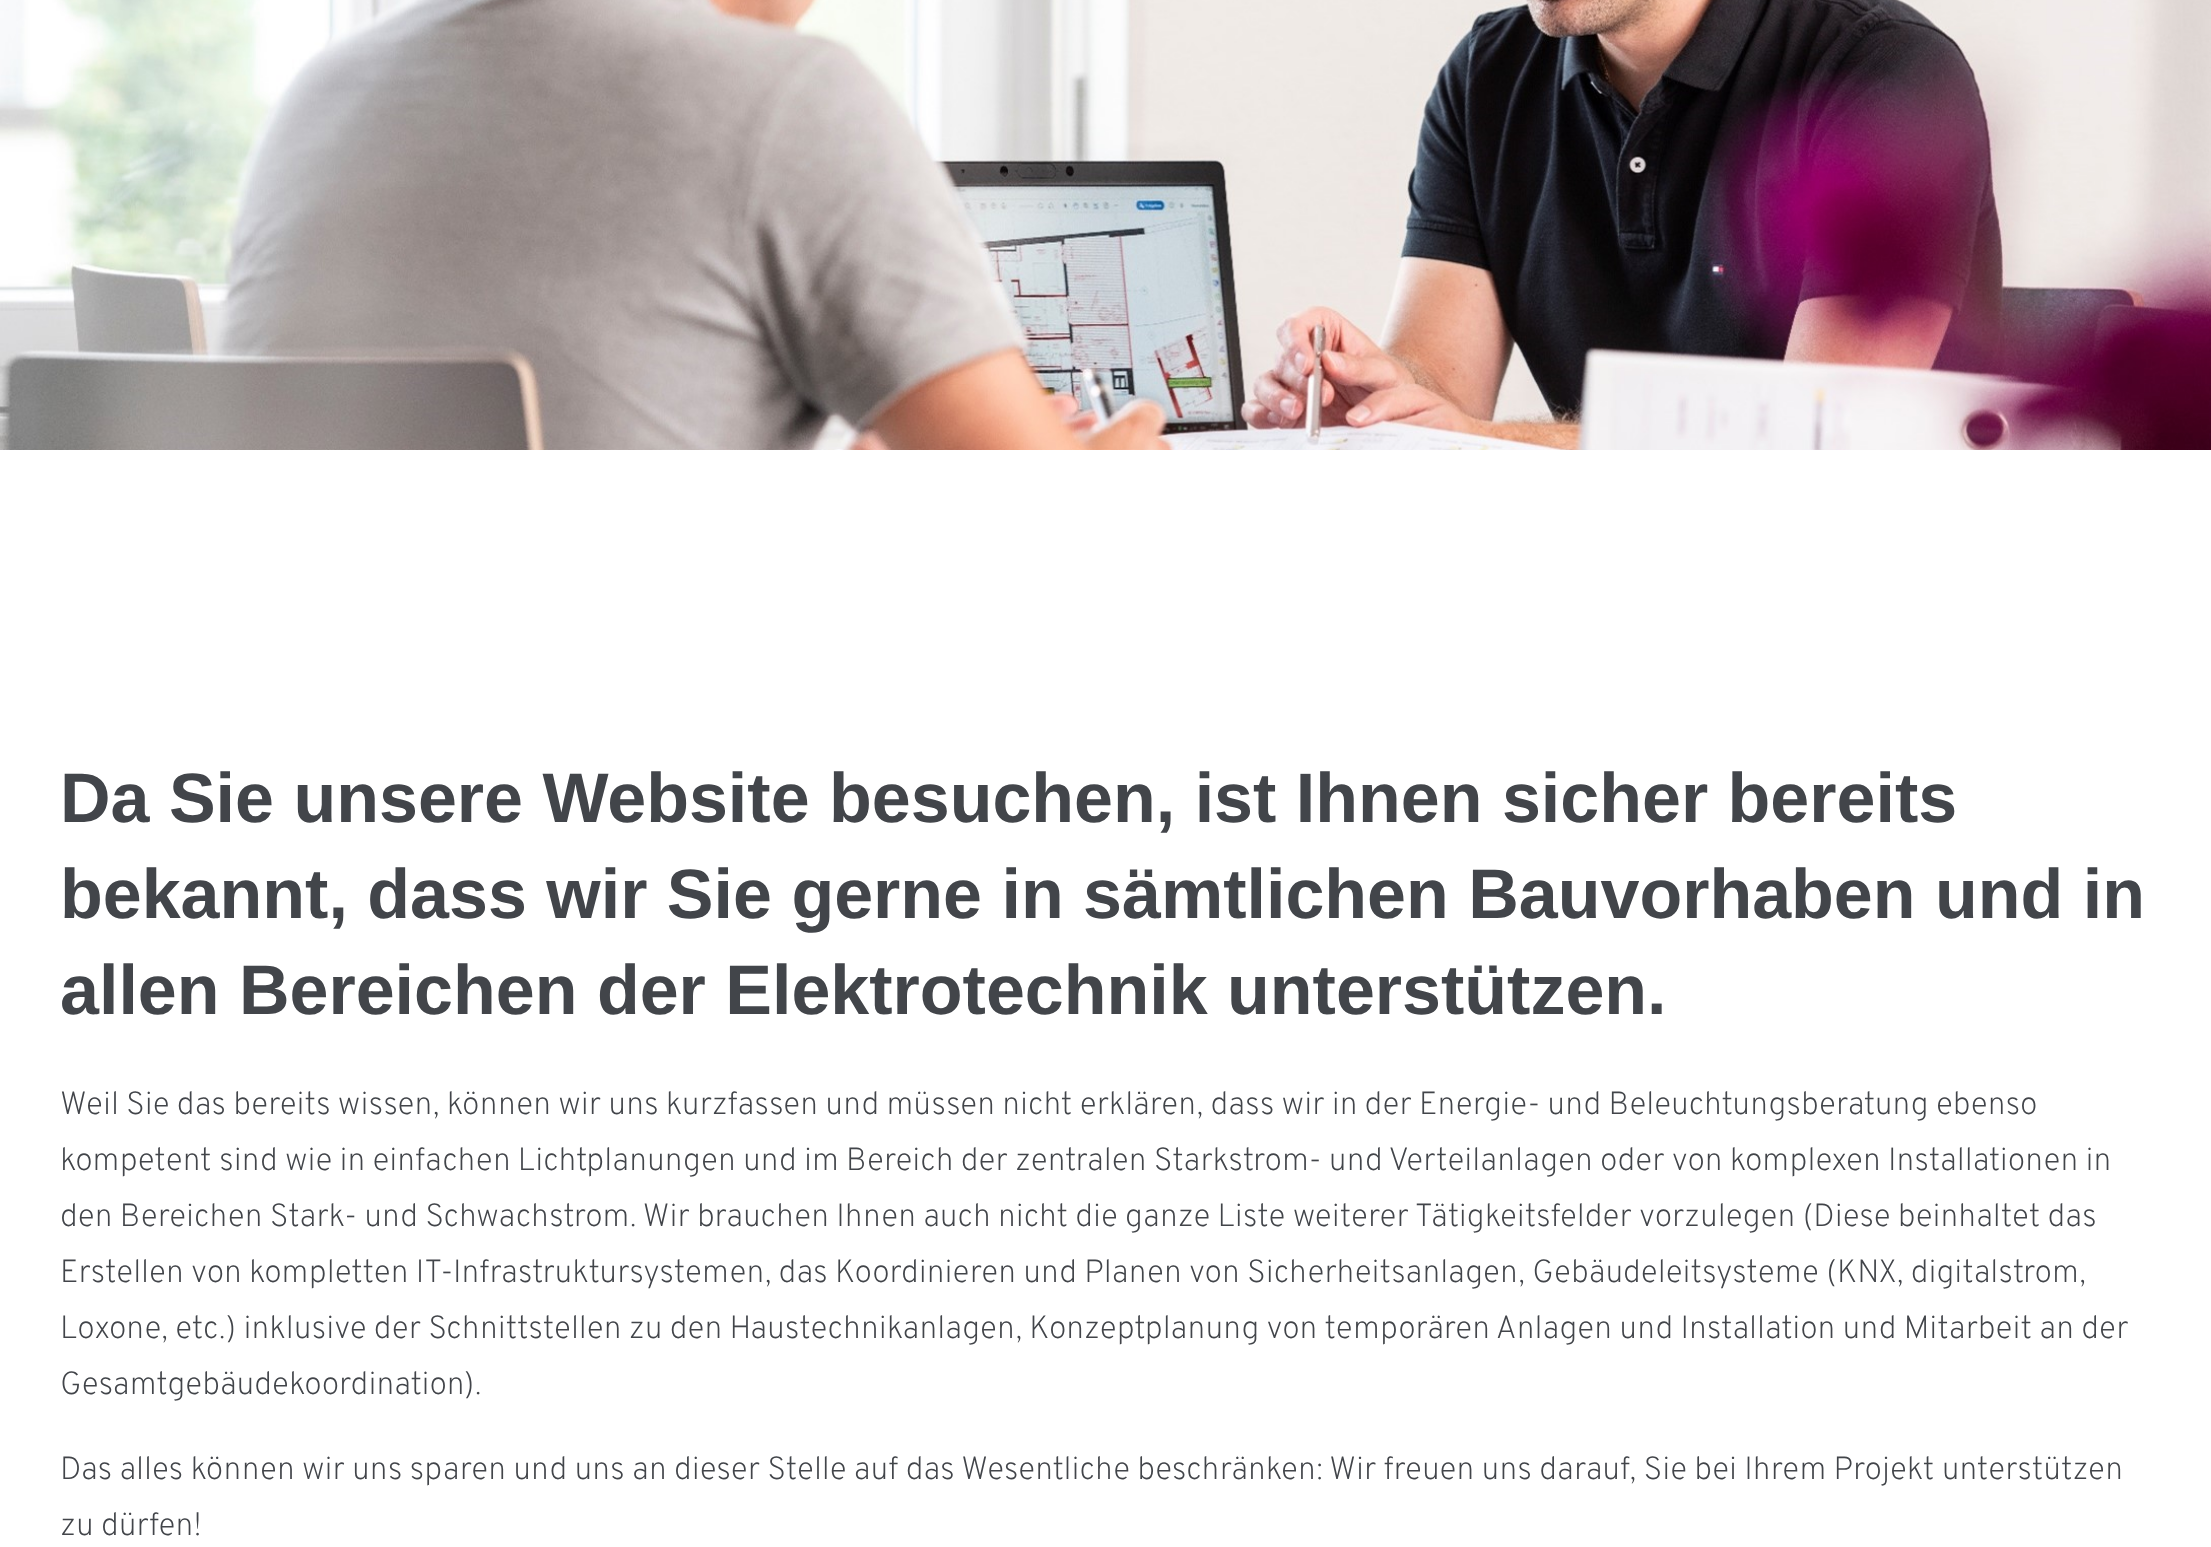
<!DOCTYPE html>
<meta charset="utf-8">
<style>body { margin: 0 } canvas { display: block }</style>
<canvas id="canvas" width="2211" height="1547"></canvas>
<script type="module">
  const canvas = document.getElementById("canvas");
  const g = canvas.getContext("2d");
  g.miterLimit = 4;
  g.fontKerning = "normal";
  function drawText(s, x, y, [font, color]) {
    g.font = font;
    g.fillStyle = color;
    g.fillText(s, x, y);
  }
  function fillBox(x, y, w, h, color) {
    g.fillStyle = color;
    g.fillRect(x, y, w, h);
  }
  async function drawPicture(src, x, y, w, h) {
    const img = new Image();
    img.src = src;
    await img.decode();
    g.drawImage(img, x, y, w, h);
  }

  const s1 = ["bold 70px Liberation Sans", "#42454A"];
  const s2 = ["200 32px Overpass", "#42454A"];

  fillBox(0, 0, 2211, 1547, "#FFFFFF");
  await drawPicture("pic1.png", 0, 0, 2211, 450);
  drawText("Da Sie unsere Website besuchen, ist Ihnen sicher bereits", 60, 822, s1);
  drawText("bekannt, dass wir Sie gerne in sämtlichen Bauvorhaben und in", 60, 918, s1);
  drawText("allen Bereichen der Elektrotechnik unterstützen.", 60, 1014, s1);
  drawText("Weil Sie das bereits wissen, können wir uns kurzfassen und müssen nicht erklären, dass wir in der Energie- und Beleuchtungsberatung ebenso", 60, 1114, s2);
  drawText("kompetent sind wie in einfachen Lichtplanungen und im Bereich der zentralen Starkstrom- und Verteilanlagen oder von komplexen Installationen in", 60, 1170, s2);
  drawText("den Bereichen Stark- und Schwachstrom. Wir brauchen Ihnen auch nicht die ganze Liste weiterer Tätigkeitsfelder vorzulegen (Diese beinhaltet das", 60, 1226, s2);
  drawText("Erstellen von kompletten IT-Infrastruktursystemen, das Koordinieren und Planen von Sicherheitsanlagen, Gebäudeleitsysteme (KNX, digitalstrom,", 60, 1282, s2);
  drawText("Loxone, etc.) inklusive der Schnittstellen zu den Haustechnikanlagen, Konzeptplanung von temporären Anlagen und Installation und Mitarbeit an der", 60, 1338, s2);
  drawText("Gesamtgebäudekoordination).", 60, 1394, s2);
  drawText("Das alles können wir uns sparen und uns an dieser Stelle auf das Wesentliche beschränken: Wir freuen uns darauf, Sie bei Ihrem Projekt unterstützen", 60, 1479, s2);
  drawText("zu dürfen!", 60, 1535, s2);
</script>
